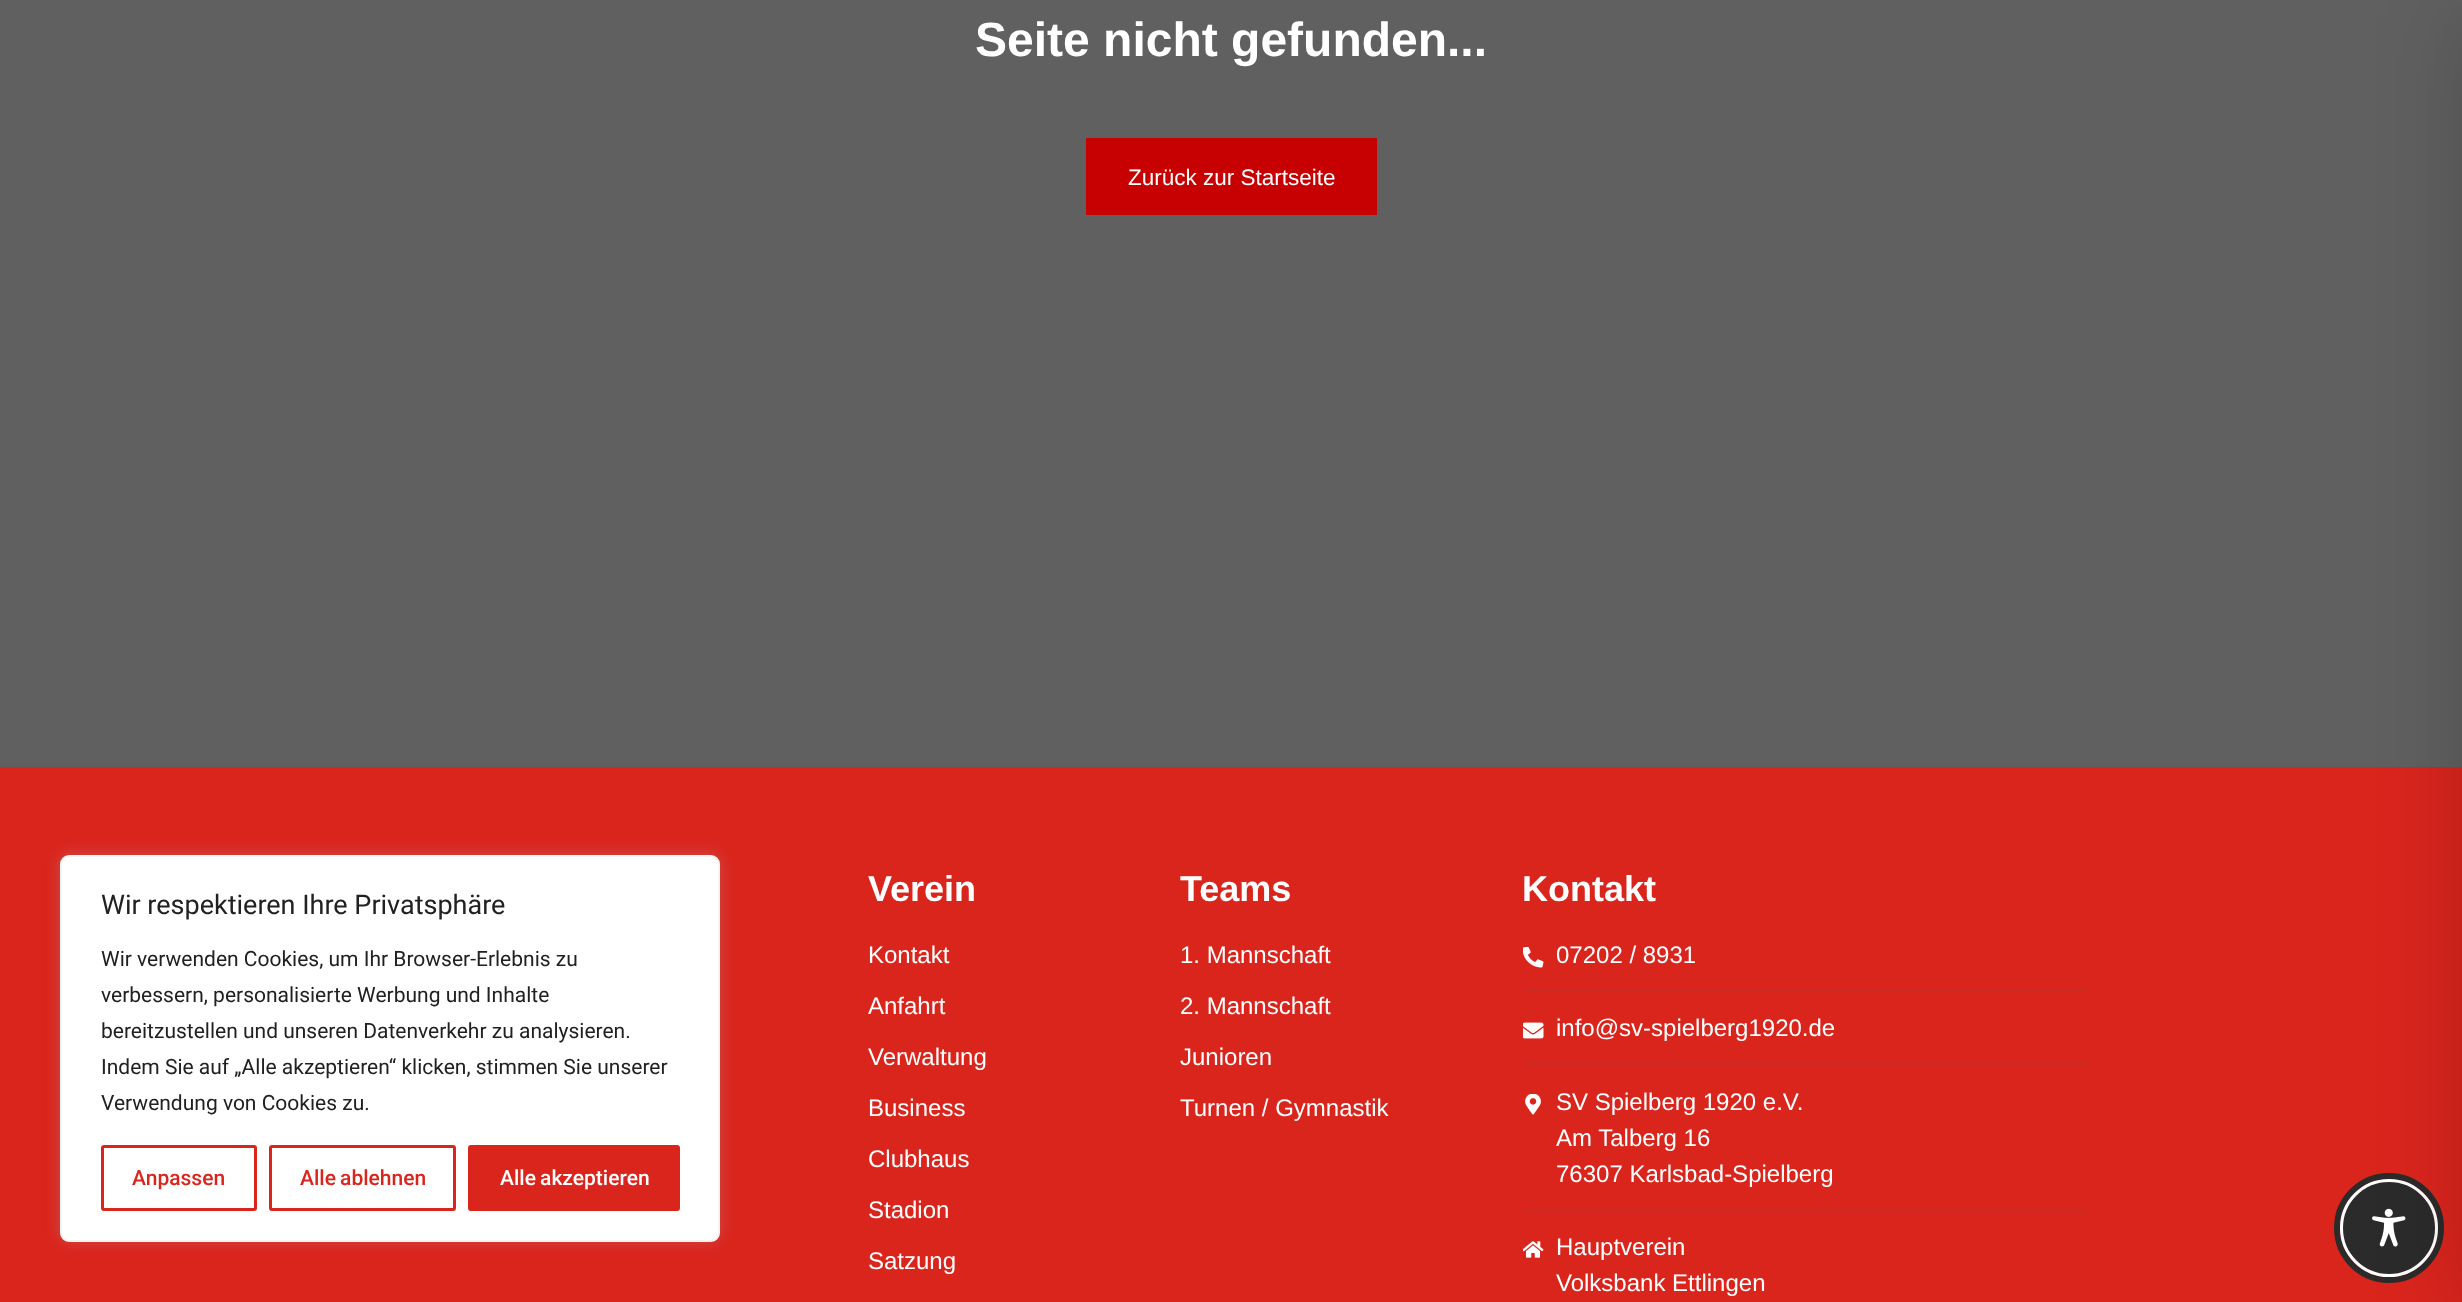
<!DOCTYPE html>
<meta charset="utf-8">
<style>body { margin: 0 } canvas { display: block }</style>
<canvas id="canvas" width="2462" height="1302"></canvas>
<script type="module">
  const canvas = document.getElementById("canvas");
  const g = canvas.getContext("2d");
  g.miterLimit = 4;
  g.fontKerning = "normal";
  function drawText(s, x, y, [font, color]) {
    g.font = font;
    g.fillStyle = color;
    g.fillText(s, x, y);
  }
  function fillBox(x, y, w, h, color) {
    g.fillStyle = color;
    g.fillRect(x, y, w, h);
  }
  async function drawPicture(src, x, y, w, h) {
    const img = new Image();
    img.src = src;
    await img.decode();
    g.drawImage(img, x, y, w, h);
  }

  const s1 = ["bold 48px Liberation Sans", "#FFFFFF"];
  const s2 = ["22.5px Liberation Sans", "#FFFFFF"];
  const s3 = ["27px Roboto", "#212121"];
  const s4 = ["21px Roboto", "#212121"];
  const s5 = ["500 21px Roboto", "#DA251D"];
  const s6 = ["500 21px Roboto", "#FFFFFF"];
  const s7 = ["bold 36px Liberation Sans", "#FFFFFF"];
  const s8 = ["24px Liberation Sans", "#FFFFFF"];

  fillBox(0, 0, 2462, 1302, "#606060");
  drawText("Seite nicht gefunden...", 975, 56, s1);
  fillBox(1086, 138, 291, 77, "#C70101");
  drawText("Zurück zur Startseite", 1128, 185, s2);
  fillBox(0, 767, 2462, 535, "#DA251D");
  g.beginPath();
  g.arc(2389, 1228, 52, 0, Math.PI * 2);
  g.strokeStyle = "#2B2B2B";
  g.lineWidth = 6;
  g.stroke();
  g.fillStyle = "#2B2B2B";
  g.beginPath();
  g.arc(2389, 1228, 47.5, 0, Math.PI * 2);
  g.fill();
  g.strokeStyle = "#FFFFFF";
  g.lineWidth = 3;
  g.stroke();
  await drawPicture("pic5.png", 2372, 1208, 34, 39);
  g.fillStyle = "rgba(0, 0, 0, 0.2)";
  g.filter = "blur(45px)";
  g.beginPath();
  g.rect(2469, 15, 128, 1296);
  g.fill();
  g.filter = "none";
  g.fillStyle = "rgba(172, 171, 171, 0.3)";
  g.filter = "blur(7.5px)";
  g.beginPath();
  g.roundRect(60, 854, 660, 387, 9);
  g.fill();
  g.filter = "none";
  g.fillStyle = "#FFFFFF";
  g.beginPath();
  g.roundRect(61, 856, 658, 385, 8);
  g.fill();
  g.strokeStyle = "#F4F4F4";
  g.lineWidth = 2;
  g.stroke();
  drawText("Wir respektieren Ihre Privatsphäre", 101, 914, s3);
  drawText("Wir verwenden Cookies, um Ihr Browser-Erlebnis zu", 101, 966, s4);
  drawText("verbessern, personalisierte Werbung und Inhalte", 101, 1002, s4);
  drawText("bereitzustellen und unseren Datenverkehr zu analysieren.", 101, 1038, s4);
  drawText("Indem Sie auf „Alle akzeptieren“ klicken, stimmen Sie unserer", 101, 1074, s4);
  drawText("Verwendung von Cookies zu.", 101, 1110, s4);
  g.beginPath();
  g.roundRect(102.5, 1146.5, 153, 63, 1.5);
  g.strokeStyle = "#DA251D";
  g.lineWidth = 3;
  g.stroke();
  drawText("Anpassen", 132, 1185, s5);
  g.beginPath();
  g.roundRect(270.5, 1146.5, 184, 63, 1.5);
  g.stroke();
  g.wordSpacing = "-1px";
  drawText("Alle ablehnen", 300, 1185, s5);
  g.beginPath();
  g.roundRect(469.5, 1146.5, 209, 63, 1.5);
  g.fill();
  g.stroke();
  drawText("Alle akzeptieren", 500, 1185, s6);
  g.wordSpacing = "0px";
  drawText("Verein", 868, 901, s7);
  drawText("Kontakt", 868, 963, s8);
  drawText("Anfahrt", 868, 1014, s8);
  drawText("Verwaltung", 868, 1065, s8);
  drawText("Business", 868, 1116, s8);
  drawText("Clubhaus", 868, 1167, s8);
  drawText("Stadion", 868, 1218, s8);
  drawText("Satzung", 868, 1269, s8);
  drawText("Teams", 1180, 901, s7);
  drawText("1. Mannschaft", 1180, 963, s8);
  drawText("2. Mannschaft", 1180, 1014, s8);
  drawText("Junioren", 1180, 1065, s8);
  drawText("Turnen / Gymnastik", 1180, 1116, s8);
  drawText("Kontakt", 1522, 901, s7);
  await drawPicture("pic1.png", 1523, 947, 21, 21);
  drawText("07202 / 8931", 1556, 963, s8);
  fillBox(1523, 990, 562, 2, "#C92C25");
  await drawPicture("pic2.png", 1523, 1022, 21, 17);
  drawText("info@sv-spielberg1920.de", 1556, 1036, s8);
  fillBox(1523, 1064, 562, 2, "#C92C25");
  await drawPicture("pic3.png", 1525, 1094, 16, 21);
  drawText("SV Spielberg 1920 e.V.", 1556, 1110, s8);
  drawText("Am Talberg 16", 1556, 1146, s8);
  drawText("76307 Karlsbad-Spielberg", 1556, 1182, s8);
  fillBox(1523, 1209, 562, 2, "#C92C25");
  await drawPicture("pic4.png", 1523, 1241, 21, 17);
  drawText("Hauptverein", 1556, 1255, s8);
  drawText("Volksbank Ettlingen", 1556, 1291, s8);
</script>
